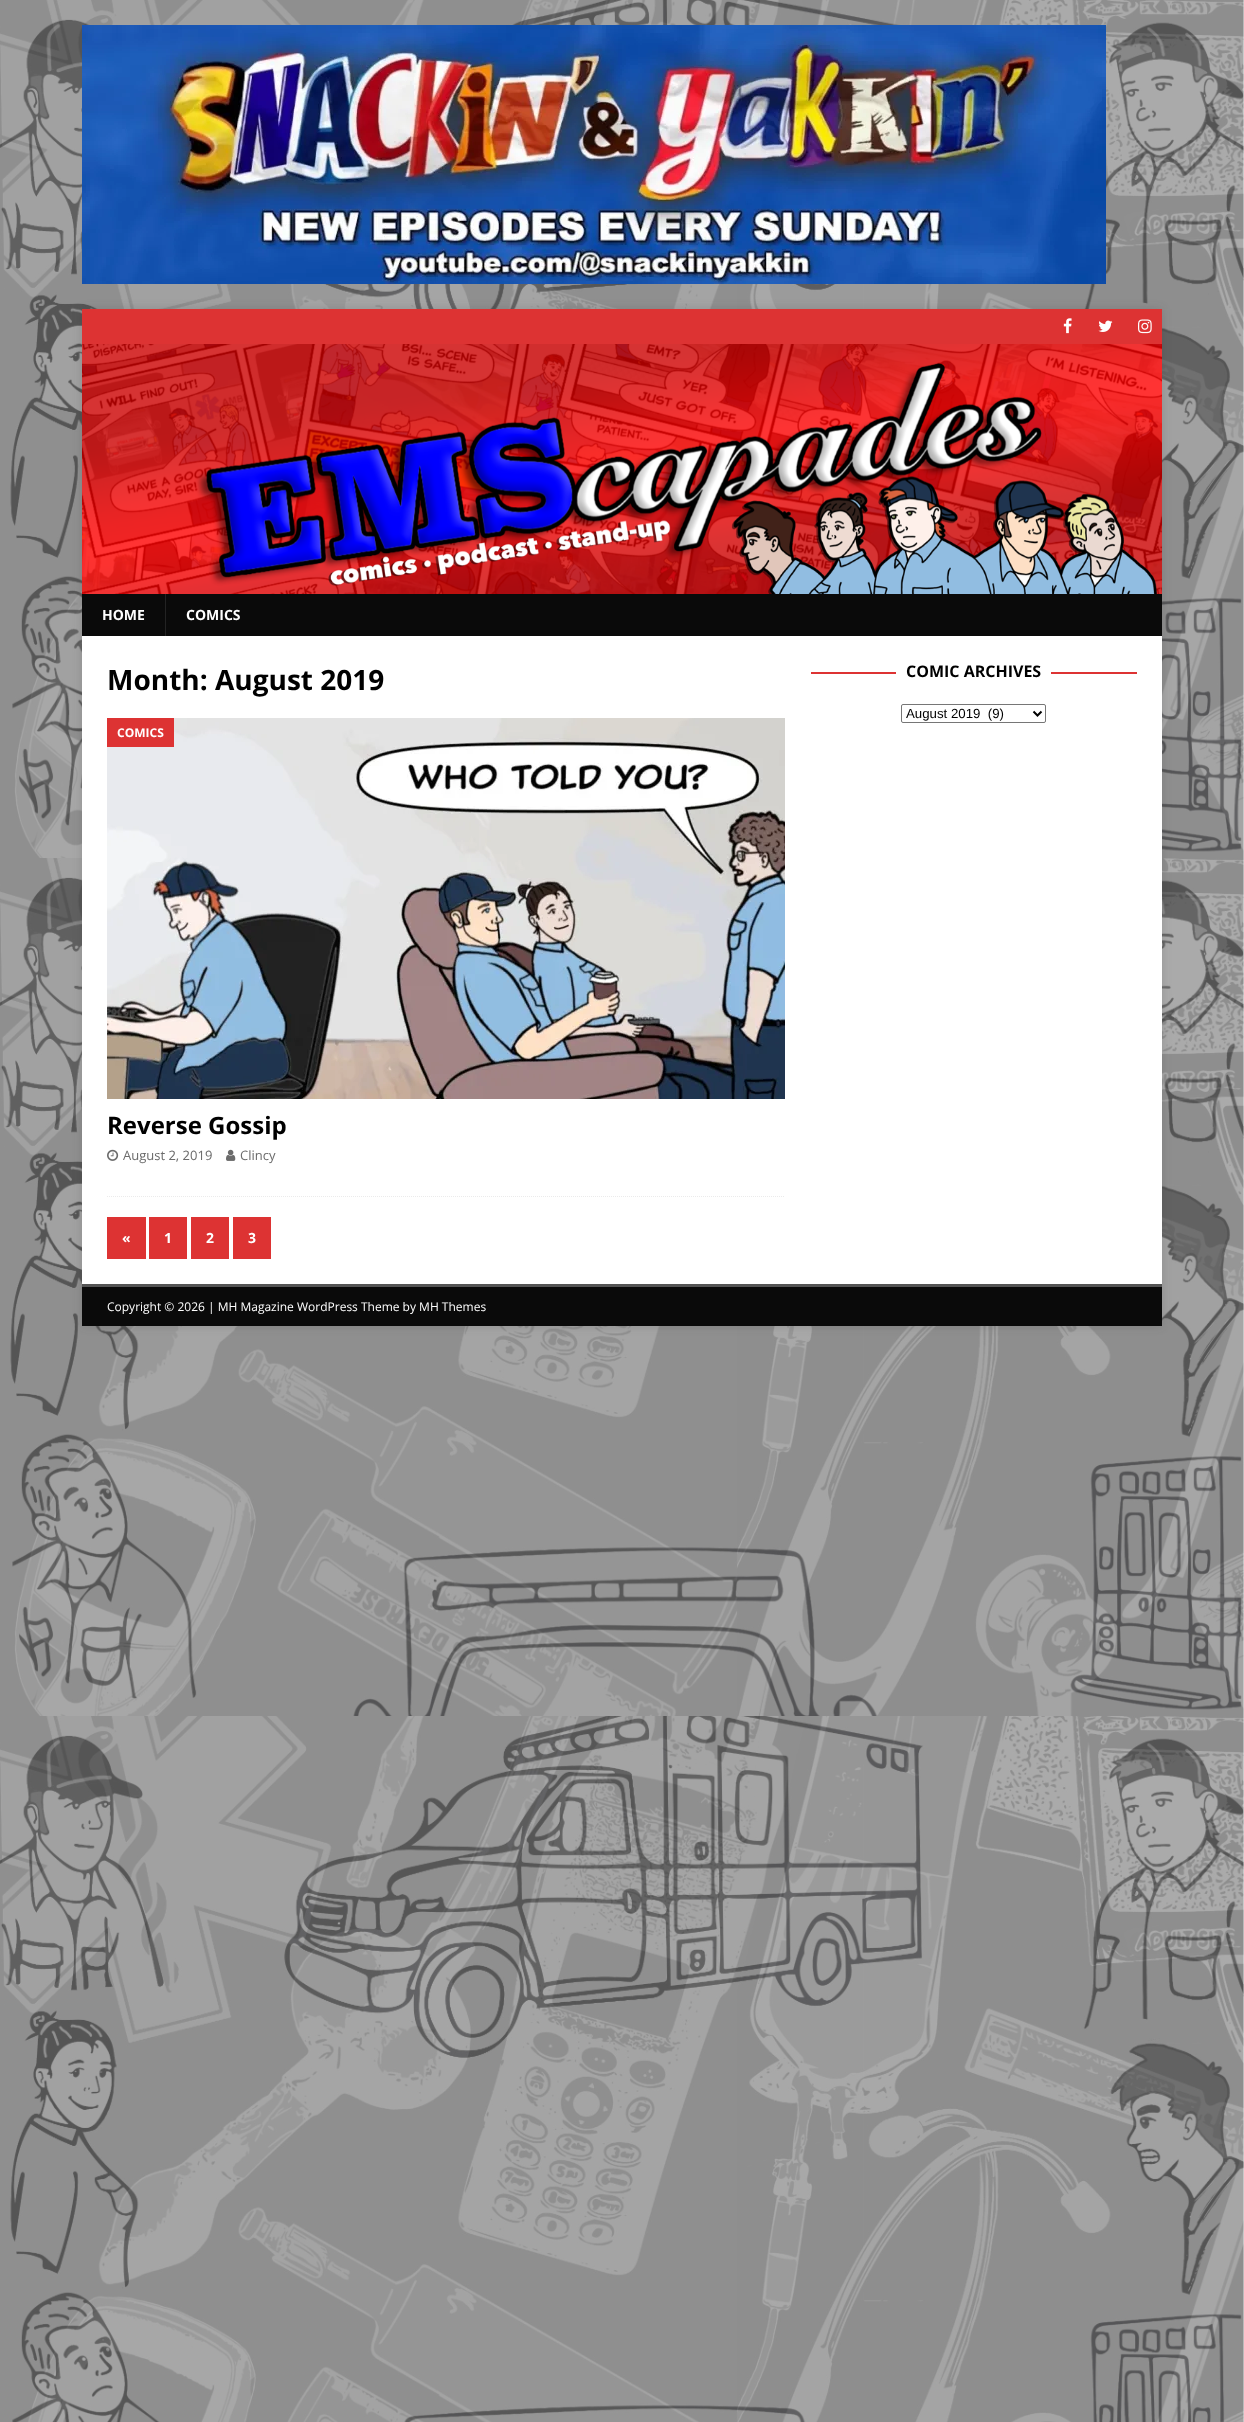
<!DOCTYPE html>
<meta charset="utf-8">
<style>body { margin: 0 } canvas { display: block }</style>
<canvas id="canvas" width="1244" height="2422"></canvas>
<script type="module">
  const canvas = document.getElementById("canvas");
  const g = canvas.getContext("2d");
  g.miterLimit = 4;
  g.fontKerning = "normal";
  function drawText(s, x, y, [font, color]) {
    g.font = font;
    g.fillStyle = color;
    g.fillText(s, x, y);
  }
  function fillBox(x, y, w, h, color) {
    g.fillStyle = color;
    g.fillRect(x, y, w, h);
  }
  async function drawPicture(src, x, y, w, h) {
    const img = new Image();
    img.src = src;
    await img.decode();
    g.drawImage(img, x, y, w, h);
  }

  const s1 = ["bold 14px Open Sans", "#FFFFFF"];
  const s2 = ["bold 28px Open Sans", "#000000"];
  const s3 = ["bold 12px Open Sans", "#FFFFFF"];
  const s4 = ["bold 24px Open Sans", "#000000"];
  const s5 = ["13px Open Sans", "#6B6B6B"];
  const s6 = ["bold 16px Open Sans", "#000000"];
  const s7 = ["13.25px Liberation Sans", "#000000"];
  const s8 = ["12px Open Sans", "#FFFFFF"];

  fillBox(0, 0, 1244, 2422, "#FFFFFF");
  await drawPicture("pic1.png", 0, 0, 1244, 2422);
  await drawPicture("pic2.png", 82, 25, 1024, 259);
  g.fillStyle = "rgba(50, 50, 50, 0.17)";
  g.filter = "blur(5px)";
  g.beginPath();
  g.rect(82, 309, 1080, 1017);
  g.fill();
  g.filter = "none";
  fillBox(82, 309, 1080, 35, "#DD3333");
  await drawPicture("pic3.png", 1063, 318, 9, 16);
  await drawPicture("pic4.png", 1098, 320, 15, 12);
  await drawPicture("pic5.png", 1138, 319, 14, 15);
  await drawPicture("pic6.png", 82, 344, 1080, 250);
  fillBox(82, 594, 1080, 42, "#0A0A0A");
  drawText("HOME", 102, 620, s1);
  fillBox(165, 594, 1, 42, "#232323");
  drawText("COMICS", 186, 620, s1);
  fillBox(82, 636, 1080, 648, "#FFFFFF");
  drawText("Month: August 2019", 107, 690, s2);
  g.beginPath();
  g.moveTo(107, 1196.5);
  g.lineTo(785, 1196.5);
  g.strokeStyle = "#EBEBEB";
  g.setLineDash([1, 1]);
  g.stroke();
  await drawPicture("pic7.png", 107, 718, 678, 381);
  fillBox(107, 718, 67, 29, "#DD3333");
  drawText("COMICS", 117, 737, s3);
  drawText("Reverse Gossip", 107, 1134, s4);
  await drawPicture("pic8.png", 107, 1149, 12, 12);
  drawText("August 2, 2019", 123, 1160, s5);
  await drawPicture("pic9.png", 226, 1149, 10, 12);
  drawText("Clincy", 240, 1160, s5);
  fillBox(107, 1217, 39, 42, "#DD3333");
  drawText("«", 122, 1243, s1);
  fillBox(149, 1217, 38, 42, "#DD3333");
  drawText("1", 164, 1243, s1);
  fillBox(191, 1217, 38, 42, "#DD3333");
  drawText("2", 206, 1243, s1);
  fillBox(233, 1217, 38, 42, "#DD3333");
  drawText("3", 248, 1243, s1);
  fillBox(811, 672, 326, 2, "#DD3333");
  fillBox(896, 672, 155, 2, "#FFFFFF");
  drawText("COMIC ARCHIVES", 906, 677, s6);
  g.beginPath();
  g.roundRect(901.5, 704.5, 144, 18, 1.5);
  g.strokeStyle = "#767676";
  g.setLineDash([]);
  g.stroke();
  g.beginPath();
  g.moveTo(1033.5, 711.5);
  g.lineTo(1037.5, 715.5);
  g.lineTo(1041.5, 711.5);
  g.strokeStyle = "#000000";
  g.lineWidth = 2;
  g.stroke();
  drawText("August 2019  (9)", 906, 718, s7);
  fillBox(82, 1287, 1080, 39, "#0A0A0A");
  fillBox(82, 1284, 1080, 3, "#545454");
  drawText("Copyright © 2026 | MH Magazine WordPress Theme by MH Themes", 107, 1311, s8);
</script>
